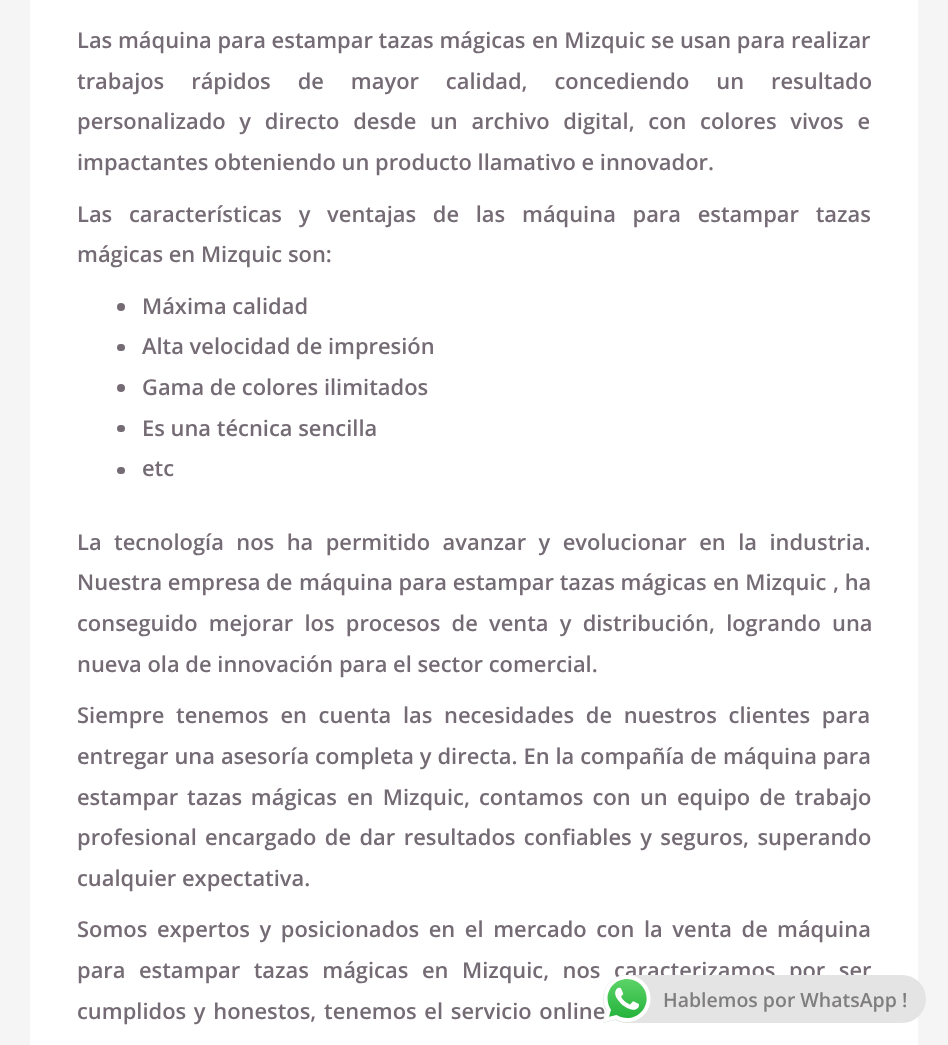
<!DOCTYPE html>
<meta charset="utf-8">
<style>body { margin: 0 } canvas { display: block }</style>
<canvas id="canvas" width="948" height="1045"></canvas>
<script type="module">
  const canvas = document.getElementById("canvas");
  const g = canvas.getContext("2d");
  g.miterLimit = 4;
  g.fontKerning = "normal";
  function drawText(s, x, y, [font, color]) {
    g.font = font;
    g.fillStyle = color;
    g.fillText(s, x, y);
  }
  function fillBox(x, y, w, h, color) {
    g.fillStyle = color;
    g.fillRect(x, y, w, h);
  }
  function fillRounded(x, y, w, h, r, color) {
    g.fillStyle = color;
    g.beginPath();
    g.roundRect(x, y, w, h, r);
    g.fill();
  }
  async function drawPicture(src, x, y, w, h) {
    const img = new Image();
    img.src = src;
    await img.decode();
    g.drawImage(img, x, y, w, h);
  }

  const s1 = ["600 21.9px Open Sans", "#746B74"];
  const s2 = ["600 19.5px Open Sans", "#7F7D7D"];

  fillBox(0, 0, 948, 1045, "#F5F5F5");
  fillBox(30, 0, 888, 1045, "#FFFFFF");
  drawText("Las máquina para estampar tazas mágicas", 77, 48, s1);
  drawText("en Mizquic", 532, 48, s1);
  drawText("se usan para realizar", 651, 48, s1);
  g.wordSpacing = "21.25px";
  drawText("trabajos rápidos de mayor calidad, concediendo un resultado", 77, 89, s1);
  g.wordSpacing = "8px";
  drawText("personalizado y directo desde un archivo digital, con colores vivos e", 77, 129, s1);
  g.wordSpacing = "0px";
  drawText("impactantes obteniendo un producto llamativo e innovador.", 77, 170, s1);
  g.wordSpacing = "11px";
  drawText("Las características y ventajas de las", 77, 222, s1);
  drawText("máquina para estampar tazas", 522, 222, s1);
  g.wordSpacing = "0px";
  drawText("mágicas en Mizquic son:", 77, 262, s1);
  g.beginPath();
  g.arc(121, 307, 4, 0, Math.PI * 2);
  g.fill();
  drawText("Máxima calidad", 142, 314, s1);
  fillRounded(117, 344, 8, 7, 3.5, "#746B74");
  drawText("Alta velocidad de impresión", 142, 354, s1);
  g.beginPath();
  g.arc(121, 388, 4, 0, Math.PI * 2);
  g.fill();
  drawText("Gama de colores ilimitados", 142, 395, s1);
  fillRounded(117, 425, 8, 7, 3.5, "#746B74");
  drawText("Es una técnica sencilla", 142, 436, s1);
  fillRounded(117, 467, 8, 7, 3.5, "#746B74");
  drawText("etc", 142, 476, s1);
  g.wordSpacing = "6.75px";
  drawText("La tecnología nos ha permitido avanzar y evolucionar en la industria.", 77, 550, s1);
  g.wordSpacing = "0px";
  drawText("Nuestra empresa de", 77, 590, s1);
  drawText("máquina para estampar tazas mágicas", 299, 590, s1);
  drawText("en Mizquic", 713, 590, s1);
  drawText(", ha", 833, 590, s1);
  g.wordSpacing = "5.5px";
  drawText("conseguido mejorar los procesos de venta y distribución, logrando una", 77, 631, s1);
  g.wordSpacing = "0px";
  drawText("nueva ola de innovación para el sector comercial.", 77, 672, s1);
  g.wordSpacing = "6px";
  drawText("Siempre tenemos en cuenta las necesidades de nuestros clientes para", 77, 723, s1);
  g.wordSpacing = "0.25px";
  drawText("entregar una asesoría completa y directa. En la compañía de", 77, 764, s1);
  g.wordSpacing = "0px";
  drawText("máquina para", 723, 764, s1);
  g.wordSpacing = "3px";
  drawText("estampar tazas mágicas", 77, 805, s1);
  g.wordSpacing = "3.5px";
  drawText("en Mizquic,", 347, 805, s1);
  drawText("contamos con un equipo de trabajo", 479, 805, s1);
  g.wordSpacing = "0px";
  drawText("profesional", 77, 845, s1);
  g.wordSpacing = "2.75px";
  drawText("encargado de dar resultados confiables y seguros, superando", 205, 845, s1);
  g.wordSpacing = "0px";
  drawText("cualquier expectativa.", 77, 886, s1);
  g.wordSpacing = "3.9px";
  drawText("Somos expertos y posicionados en el mercado con la venta de", 77, 937, s1);
  g.wordSpacing = "0px";
  drawText("máquina", 777, 937, s1);
  g.wordSpacing = "7.75px";
  drawText("para estampar tazas mágicas", 77, 978, s1);
  drawText("en Mizquic, nos caracterizamos por ser", 422, 978, s1);
  g.wordSpacing = "2px";
  drawText("cumplidos y honestos, tenemos el servicio online", 77, 1019, s1);
  fillRounded(603, 975, 323, 48, 24, "#E4E4E4");
  await drawPicture("pic1.png", 603, 975, 48, 48);
  g.wordSpacing = "0px";
  drawText("Hablemos por WhatsApp !", 663, 1007, s2);
</script>
